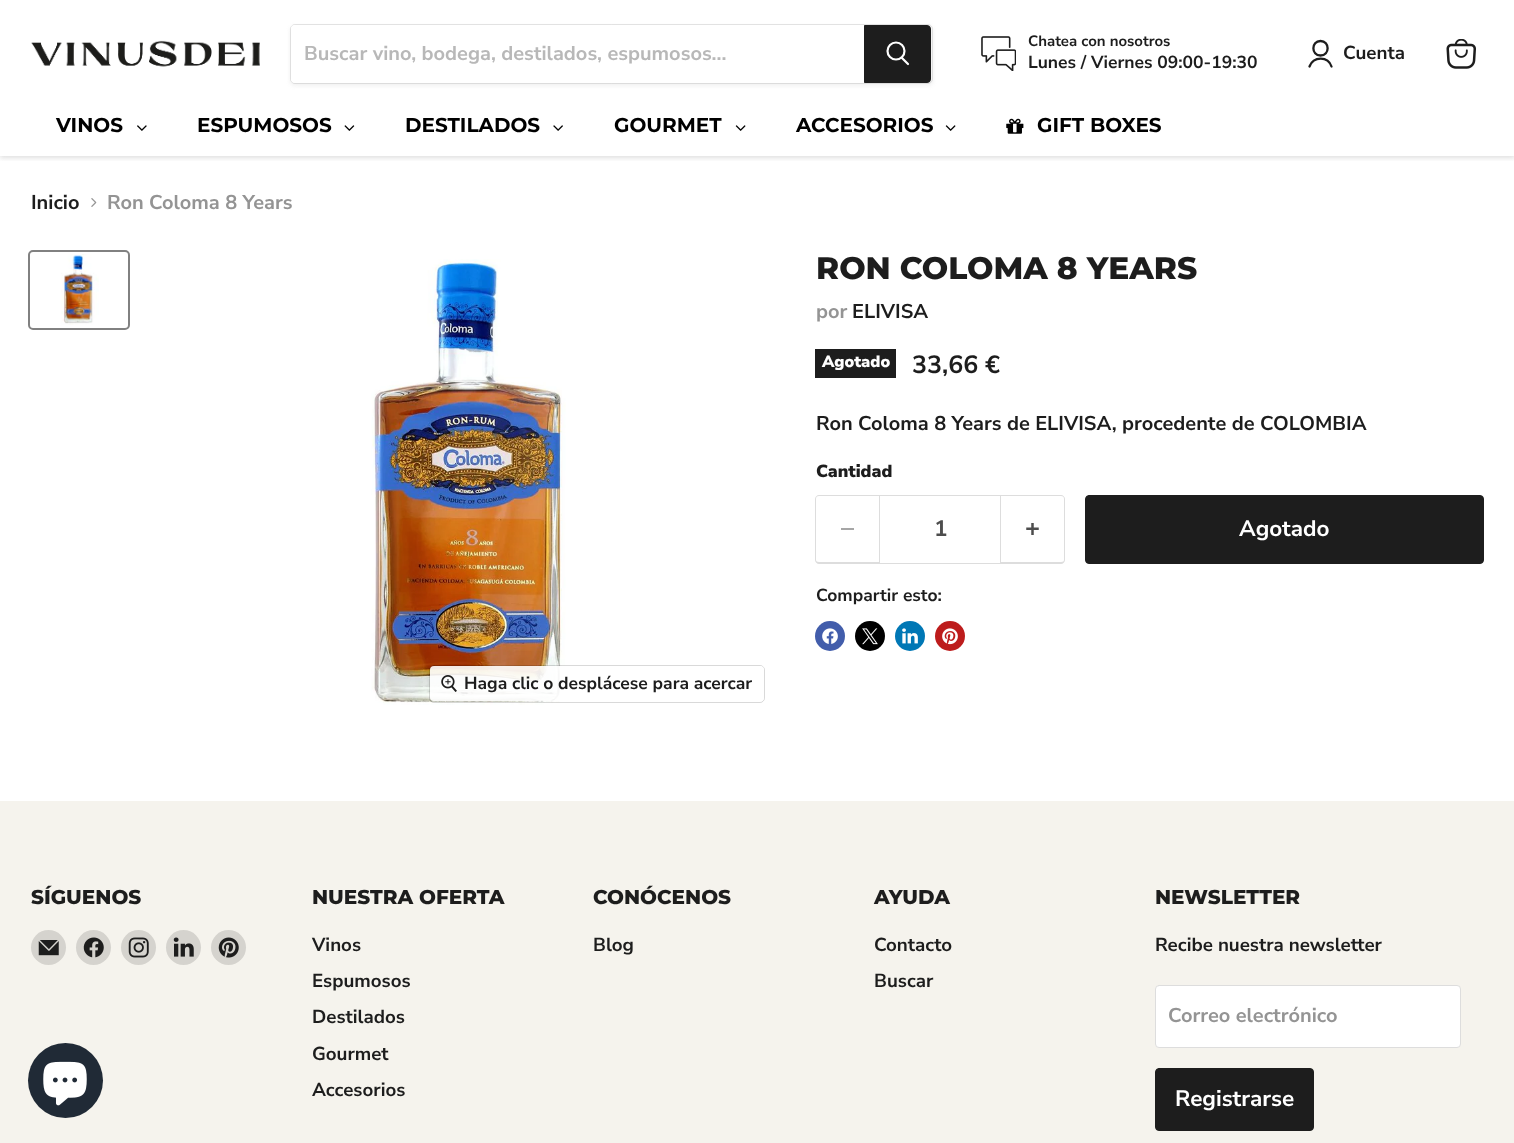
<!DOCTYPE html>
<meta charset="utf-8">
<style>body { margin: 0 } canvas { display: block }</style>
<canvas id="canvas" width="1514" height="1143"></canvas>
<script type="module">
  const canvas = document.getElementById("canvas");
  const g = canvas.getContext("2d");
  g.miterLimit = 4;
  g.fontKerning = "normal";
  function drawText(s, x, y, [font, color]) {
    g.font = font;
    g.fillStyle = color;
    g.fillText(s, x, y);
  }
  function fillBox(x, y, w, h, color) {
    g.fillStyle = color;
    g.fillRect(x, y, w, h);
  }
  function fillRounded(x, y, w, h, r, color) {
    g.fillStyle = color;
    g.beginPath();
    g.roundRect(x, y, w, h, r);
    g.fill();
  }
  async function drawPicture(src, x, y, w, h) {
    const img = new Image();
    img.src = src;
    await img.decode();
    g.drawImage(img, x, y, w, h);
  }

  const s1 = ["bold 20px Nunito Sans", "#B8B8B8"];
  const s2 = ["bold 15px Nunito Sans", "#1D1D1D"];
  const s3 = ["bold 17.5px Nunito Sans", "#1D1D1D"];
  const s4 = ["bold 18.75px Nunito Sans", "#1D1D1D"];
  const s5 = ["100 20px Montserrat", "#000000"];
  const s6 = ["bold 20px Nunito Sans", "#1D1D1D"];
  const s7 = ["bold 20px Nunito Sans", "#949494"];
  const s8 = ["800 31.25px Montserrat", "#1D1D1D"];
  const s9 = ["900 16.25px Nunito Sans", "#FFFFFF"];
  const s10 = ["bold 25px Nunito Sans", "#1D1D1D"];
  const s11 = ["900 17.5px Nunito Sans", "#1D1D1D"];
  const s12 = ["bold 22.5px Nunito Sans", "#4D4D4D"];
  const s13 = ["bold 22.5px Nunito Sans", "#FFFFFF"];
  const s14 = ["800 20px Montserrat", "#1D1D1D"];

  fillBox(0, 0, 1514, 1143, "#FFFFFF");
  g.save();
  g.beginPath();
  g.rect(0, 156, 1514, 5);
  g.clip();
  g.fillStyle = "rgba(128, 128, 128, 0.25)";
  g.filter = "blur(2.5px)";
  g.beginPath();
  g.rect(0, 1, 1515, 157);
  g.fill();
  g.filter = "none";
  g.restore();
  await drawPicture("pic1.png", 31, 40, 229, 27);
  g.fillStyle = "rgba(128, 128, 128, 0.11)";
  g.filter = "blur(2px)";
  g.beginPath();
  g.roundRect(290, 26, 643, 60, 5);
  g.fill();
  g.filter = "none";
  g.beginPath();
  g.roundRect(290.5, 24.5, 642, 59, 4.5);
  g.strokeStyle = "rgba(128, 128, 128, 0.2)";
  g.stroke();
  g.fillStyle = "#FFFFFF";
  g.beginPath();
  g.roundRect(291, 25, 573, 58, [4, 0, 0, 4]);
  g.fill();
  drawText("Buscar vino, bodega, destilados, espumosos...", 304, 60, s1);
  g.fillStyle = "#1D1D1D";
  g.beginPath();
  g.roundRect(864.5, 25.5, 66, 57, [0, 3.5, 3.5, 0]);
  g.fill();
  g.strokeStyle = "#1D1D1D";
  g.stroke();
  g.beginPath();
  g.moveTo(908, 64);
  g.lineTo(902, 58);
  g.strokeStyle = "#FFFFFF";
  g.lineWidth = 2.2;
  g.lineCap = "round";
  g.stroke();
  g.beginPath();
  g.arc(896, 51, 8.5, 0, Math.PI * 2);
  g.stroke();
  await drawPicture("pic2.png", 981, 36, 35, 35);
  drawText("Chatea con nosotros", 1028, 46, s2);
  drawText("Lunes / Viernes 09:00-19:30", 1028, 68, s3);
  g.beginPath();
  g.moveTo(1320.5, 55.5);
  g.bezierCurveTo(1330, 55.5, 1330, 41, 1320.5, 41);
  g.bezierCurveTo(1311, 41, 1311, 55.5, 1320.5, 55.5);
  g.closePath();
  g.moveTo(1331.5, 66.5);
  g.bezierCurveTo(1328, 56, 1313.5, 56, 1309.5, 66.5);
  g.strokeStyle = "#1D1D1D";
  g.lineWidth = 2.3;
  g.lineJoin = "round";
  g.stroke();
  drawText("Cuenta", 1343, 59, s4);
  await drawPicture("pic3.png", 1446, 39, 30, 30);
  drawText("VINOS", 56, 132, s5);
  await drawPicture("pic4.png", 137, 125, 10, 6);
  drawText("ESPUMOSOS", 197, 132, s5);
  await drawPicture("pic5.png", 344, 125, 11, 6);
  drawText("DESTILADOS", 405, 132, s5);
  await drawPicture("pic6.png", 553, 125, 10, 6);
  drawText("GOURMET", 614, 132, s5);
  await drawPicture("pic7.png", 735, 125, 11, 6);
  drawText("ACCESORIOS", 796, 132, s5);
  await drawPicture("pic7.png", 945, 125, 11, 6);
  await drawPicture("pic8.png", 1006, 118, 18, 16);
  drawText("GIFT BOXES", 1037, 132, s5);
  drawText("Inicio", 31, 209, s6);
  await drawPicture("pic9.png", 91, 198, 6, 9);
  drawText("Ron Coloma 8 Years", 107, 209, s7);
  drawText("RON COLOMA 8 YEARS", 816, 279, s8);
  drawText("por", 816, 318, s7);
  drawText("ELIVISA", 852, 318, s6);
  fillBox(815, 349, 81, 29, "#1D1D1D");
  drawText("Agotado", 822, 367, s9);
  drawText("33,66 €", 912, 373, s10);
  drawText("Ron Coloma 8 Years de ELIVISA, procedente de COLOMBIA", 816, 430, s6);
  drawText("Cantidad", 816, 477, s11);
  g.fillStyle = "#DDDDDD";
  g.beginPath();
  g.moveTo(819, 495);
  g.lineTo(879, 495);
  g.lineTo(879, 564);
  g.lineTo(819, 564);
  g.bezierCurveTo(817, 564, 815, 562, 815, 560);
  g.lineTo(815, 499);
  g.bezierCurveTo(815, 497, 817, 495, 819, 495);
  g.closePath();
  g.moveTo(819, 496);
  g.lineTo(879, 496);
  g.lineTo(879, 562);
  g.lineTo(819, 562);
  g.bezierCurveTo(817, 562, 816, 561, 816, 560);
  g.lineTo(816, 499);
  g.bezierCurveTo(816, 497, 817, 496, 819, 496);
  g.closePath();
  g.fill("evenodd");
  fillBox(841, 528, 13, 2, "#A6A6A6");
  g.strokeStyle = "#DDDDDD";
  g.lineWidth = 1;
  g.lineJoin = "miter";
  g.strokeRect(879.5, 495.5, 121, 68);
  drawText("1", 934, 536, s12);
  g.fillStyle = "#DDDDDD";
  g.beginPath();
  g.moveTo(1001, 495);
  g.lineTo(1061, 495);
  g.bezierCurveTo(1063, 495, 1065, 497, 1065, 499);
  g.lineTo(1065, 560);
  g.bezierCurveTo(1065, 562, 1063, 564, 1061, 564);
  g.lineTo(1001, 564);
  g.closePath();
  g.moveTo(1001, 496);
  g.lineTo(1061, 496);
  g.bezierCurveTo(1063, 496, 1064, 497, 1064, 499);
  g.lineTo(1064, 560);
  g.bezierCurveTo(1064, 561, 1063, 562, 1061, 562);
  g.lineTo(1001, 562);
  g.closePath();
  g.fill("evenodd");
  await drawPicture("pic10.png", 1026, 523, 13, 12);
  g.fillStyle = "#1D1D1D";
  g.beginPath();
  g.roundRect(1085.5, 495.5, 398, 68, 3.5);
  g.fill();
  g.strokeStyle = "#1D1D1D";
  g.stroke();
  drawText("Agotado", 1239, 536, s13);
  drawText("Compartir esto:", 816, 601, s3);
  g.fillStyle = "#425DAB";
  g.beginPath();
  g.arc(830, 636, 15, 0, Math.PI * 2);
  g.fill();
  await drawPicture("pic11.png", 822, 628, 16, 16);
  g.fillStyle = "#000000";
  g.beginPath();
  g.arc(870, 636, 15, 0, Math.PI * 2);
  g.fill();
  await drawPicture("pic12.png", 862, 628, 16, 17);
  g.fillStyle = "#0077B5";
  g.beginPath();
  g.arc(910, 636, 15, 0, Math.PI * 2);
  g.fill();
  await drawPicture("pic13.png", 902, 628, 16, 16);
  g.fillStyle = "#BD1C1C";
  g.beginPath();
  g.arc(950, 636, 15, 0, Math.PI * 2);
  g.fill();
  await drawPicture("pic14.png", 942, 628, 16, 17);
  g.beginPath();
  g.roundRect(29, 251, 100, 78, 4);
  g.strokeStyle = "#818181";
  g.lineWidth = 2;
  g.stroke();
  await drawPicture("pic15.png", 61, 254, 38, 71);
  await drawPicture("pic16.png", 371, 259, 195, 446);
  g.beginPath();
  g.roundRect(429.5, 665.5, 335, 37, 4.5);
  g.strokeStyle = "rgba(0, 0, 0, 0.15)";
  g.lineWidth = 1;
  g.stroke();
  fillRounded(430, 666, 334, 35, 4, "rgba(255, 255, 255, 0.9)");
  await drawPicture("pic17.png", 441, 675, 16, 17);
  drawText("Haga clic o desplácese para acercar", 464, 689, s3);
  fillBox(0, 801, 1514, 342, "#F5F3ED");
  drawText("SÍGUENOS", 31, 904, s14);
  g.fillStyle = "#D5D3CE";
  g.beginPath();
  g.arc(48.5, 947.5, 17.5, 0, Math.PI * 2);
  g.fill();
  await drawPicture("pic18.png", 38, 940, 21, 16);
  g.beginPath();
  g.arc(93.5, 947.5, 17.5, 0, Math.PI * 2);
  g.fill();
  await drawPicture("pic19.png", 83, 937, 21, 21);
  g.beginPath();
  g.arc(138.5, 947.5, 17.5, 0, Math.PI * 2);
  g.fill();
  await drawPicture("pic20.png", 128, 937, 21, 21);
  g.beginPath();
  g.arc(183.5, 947.5, 17.5, 0, Math.PI * 2);
  g.fill();
  await drawPicture("pic21.png", 173, 937, 21, 20);
  g.beginPath();
  g.arc(228.5, 947.5, 17.5, 0, Math.PI * 2);
  g.fill();
  await drawPicture("pic22.png", 218, 937, 21, 21);
  drawText("NUESTRA OFERTA", 312, 904, s14);
  drawText("Vinos", 312, 951, s4);
  drawText("Espumosos", 312, 987, s4);
  drawText("Destilados", 312, 1023, s4);
  drawText("Gourmet", 312, 1060, s4);
  drawText("Accesorios", 312, 1096, s4);
  drawText("CONÓCENOS", 593, 904, s14);
  drawText("Blog", 593, 951, s4);
  drawText("AYUDA", 874, 904, s14);
  drawText("Contacto", 874, 951, s4);
  drawText("Buscar", 874, 987, s4);
  drawText("NEWSLETTER", 1155, 904, s14);
  drawText("Recibe nuestra newsletter", 1155, 951, s4);
  g.fillStyle = "#FFFFFF";
  g.beginPath();
  g.roundRect(1155.5, 985.5, 305, 62, 3.5);
  g.fill();
  g.strokeStyle = "#DDDDDD";
  g.stroke();
  drawText("Correo electrónico", 1168, 1022, s7);
  g.fillStyle = "#1D1D1D";
  g.beginPath();
  g.roundRect(1155.5, 1068.5, 158, 62, 3.5);
  g.fill();
  g.strokeStyle = "#1D1D1D";
  g.stroke();
  drawText("Registrarse", 1175, 1106, s13);
  g.fillStyle = "#202A36";
  g.beginPath();
  g.arc(65.5, 1080.5, 37.5, 0, Math.PI * 2);
  g.fill();
  await drawPicture("pic23.png", 43, 1061, 44, 45);
</script>
